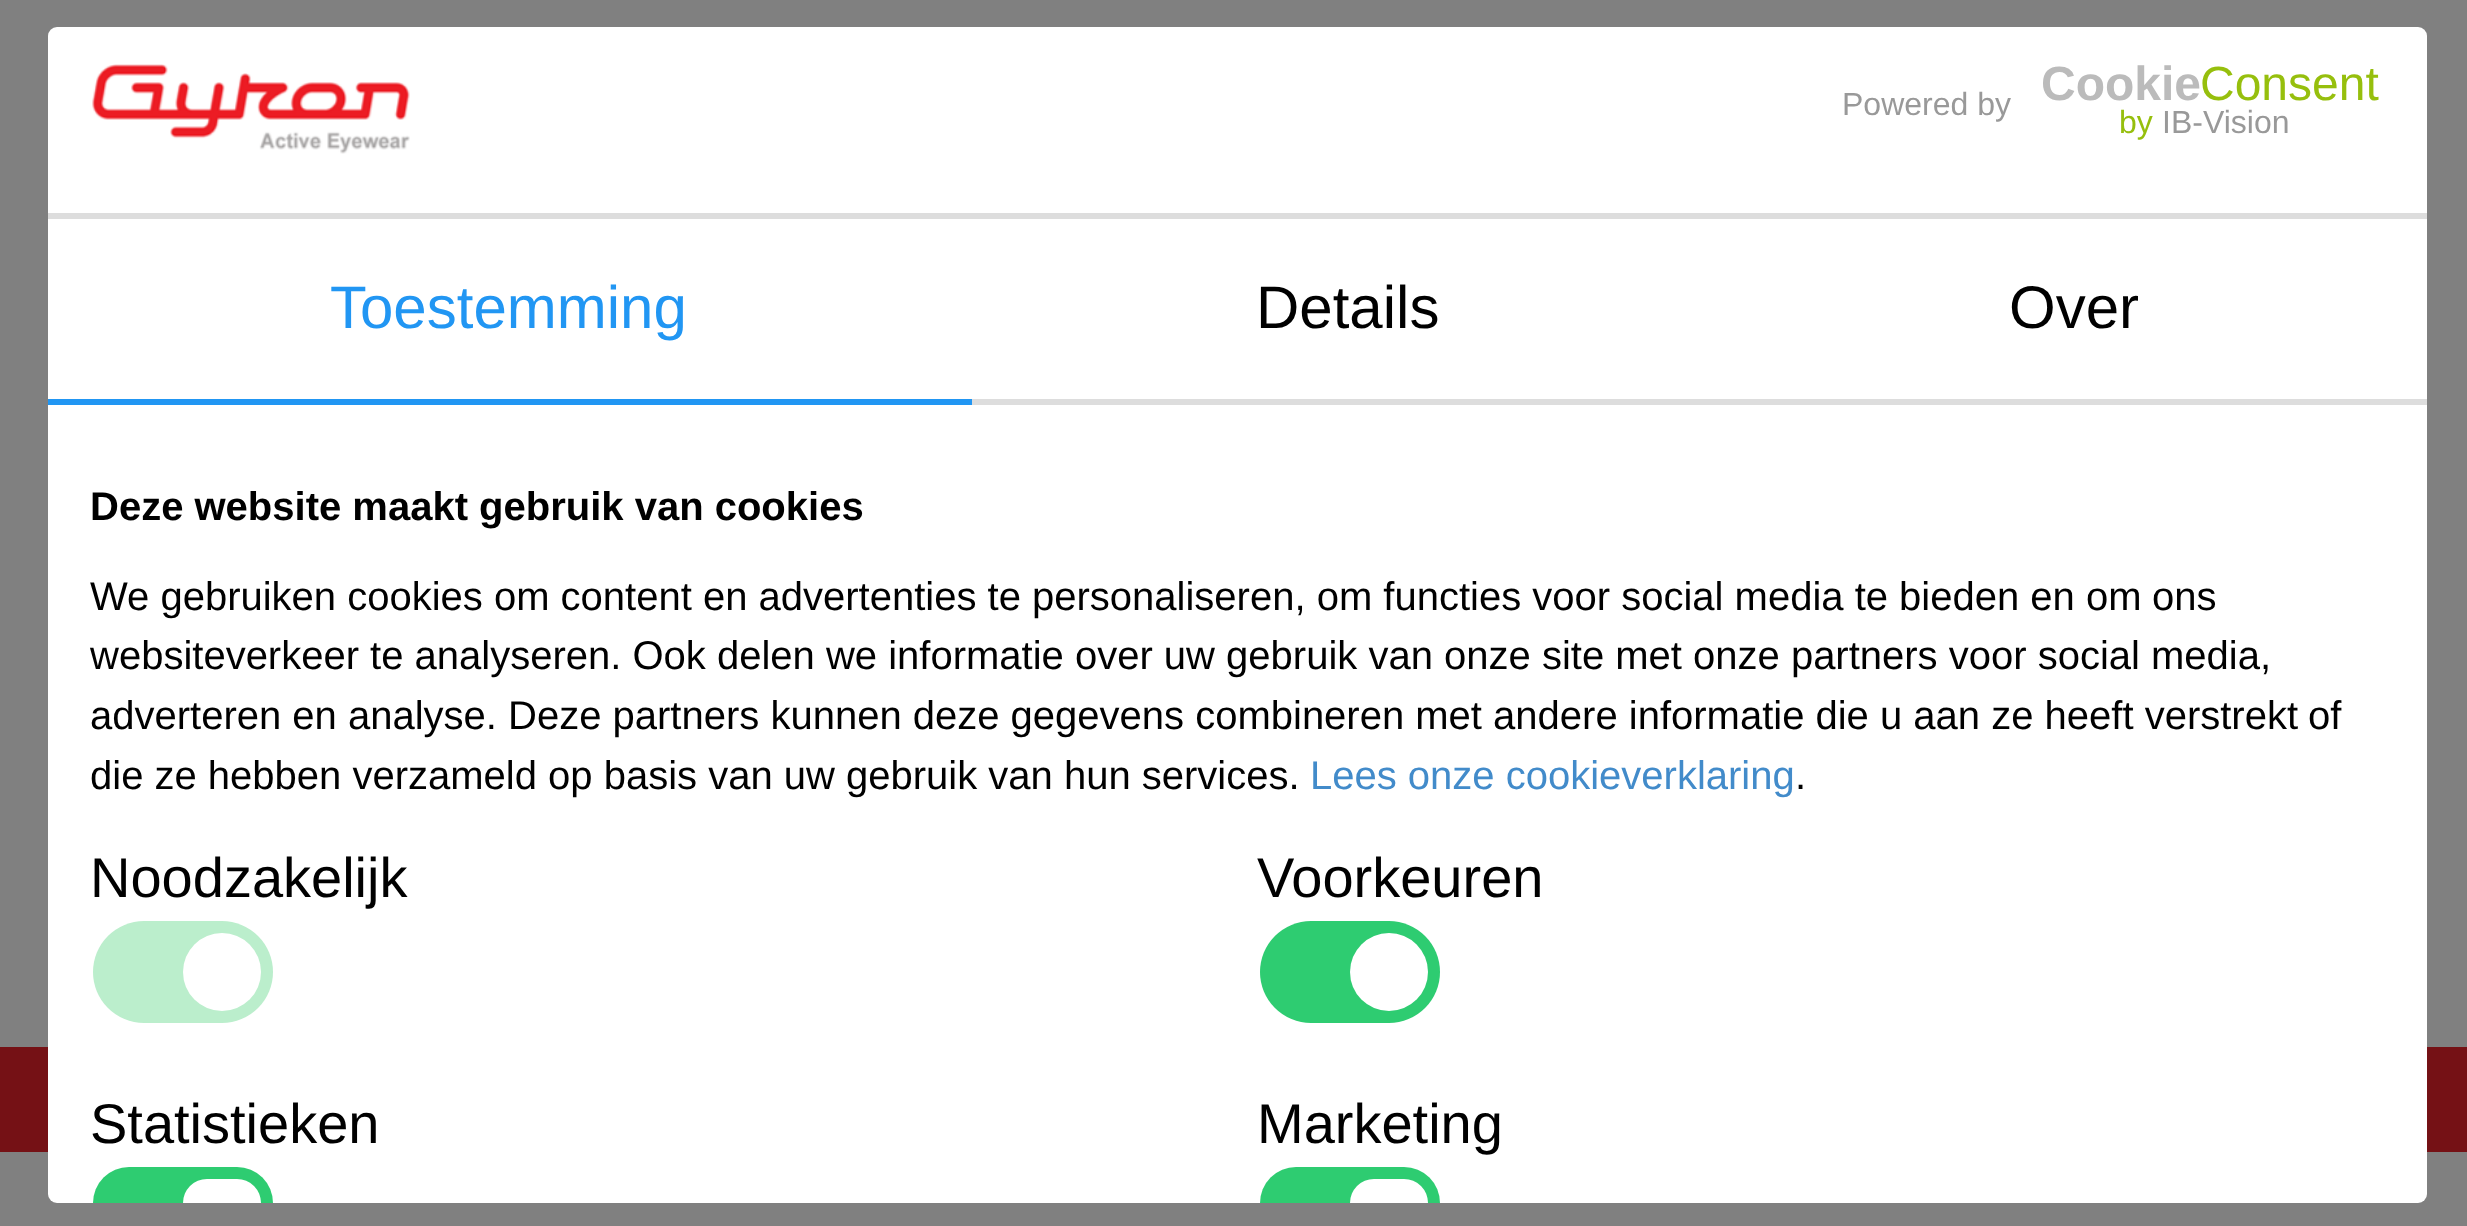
<!DOCTYPE html>
<meta charset="utf-8">
<style>body { margin: 0 } canvas { display: block }</style>
<canvas id="canvas" width="2467" height="1226"></canvas>
<script type="module">
  const canvas = document.getElementById("canvas");
  const g = canvas.getContext("2d");
  g.miterLimit = 4;
  g.fontKerning = "normal";
  function drawText(s, x, y, [font, color]) {
    g.font = font;
    g.fillStyle = color;
    g.fillText(s, x, y);
  }
  function fillBox(x, y, w, h, color) {
    g.fillStyle = color;
    g.fillRect(x, y, w, h);
  }
  function fillRounded(x, y, w, h, r, color) {
    g.fillStyle = color;
    g.beginPath();
    g.roundRect(x, y, w, h, r);
    g.fill();
  }
  async function drawPicture(src, x, y, w, h) {
    const img = new Image();
    img.src = src;
    await img.decode();
    g.drawImage(img, x, y, w, h);
  }

  const s1 = ["32px Liberation Sans", "#999999"];
  const s2 = ["bold 48px Liberation Sans", "#BBBBBB"];
  const s3 = ["48px Liberation Sans", "#96BF0D"];
  const s4 = ["32px Liberation Sans", "#96BF0D"];
  const s5 = ["60px Liberation Sans", "#2196F3"];
  const s6 = ["60px Liberation Sans", "#000000"];
  const s7 = ["bold 40px Liberation Sans", "#000000"];
  const s8 = ["40px Liberation Sans", "#000000"];
  const s9 = ["40px Liberation Sans", "#428BCA"];
  const s10 = ["56px Liberation Sans", "#000000"];

  fillBox(0, 0, 2467, 1226, "#808080");
  fillBox(0, 1047, 2467, 105, "#751115");
  fillRounded(48, 27, 2379, 1176, 9, "#FFFFFF");
  await drawPicture("pic1.png", 92, 64, 318, 90);
  drawText("Powered by", 1842, 115, s1);
  drawText("Cookie", 2041, 100, s2);
  drawText("Consent", 2200, 100, s3);
  drawText("by", 2119, 133, s4);
  drawText("IB-Vision", 2162, 133, s1);
  fillBox(48, 213, 2379, 6, "#DDDDDD");
  fillBox(48, 399, 924, 6, "#2196F3");
  drawText("Toestemming", 330, 328, s5);
  fillBox(972, 399, 1455, 6, "#DDDDDD");
  drawText("Details", 1256, 328, s6);
  drawText("Over", 2009, 328, s6);
  drawText("Deze website maakt gebruik van cookies", 90, 520, s7);
  drawText("We gebruiken cookies om content en advertenties te personaliseren, om functies voor social media te bieden en om", 90, 610, s8);
  drawText("ons", 2152, 610, s8);
  drawText("websiteverkeer te analyseren. Ook delen we informatie over uw gebruik van onze site met onze partners voor social media,", 90, 669, s8);
  drawText("adverteren en analyse. Deze partners kunnen deze gegevens combineren met andere informatie die u aan ze heeft verstrekt", 90, 729, s8);
  drawText("of", 2308, 729, s8);
  drawText("die ze hebben verzameld op basis van uw gebruik van hun services.", 90, 789, s8);
  drawText("Lees onze cookieverklaring", 1310, 789, s9);
  drawText(".", 1795, 789, s8);
  drawText("Noodzakelijk", 90, 897, s10);
  fillRounded(93, 921, 180, 102, 51, "#BBEECC");
  g.fillStyle = "#FFFFFF";
  g.beginPath();
  g.arc(222, 972, 39, 0, Math.PI * 2);
  g.fill();
  drawText("Voorkeuren", 1257, 897, s10);
  fillRounded(1260, 921, 180, 102, 51, "#2ECC71");
  g.fillStyle = "#FFFFFF";
  g.beginPath();
  g.arc(1389, 972, 39, 0, Math.PI * 2);
  g.fill();
  drawText("Statistieken", 90, 1143, s10);
  g.fillStyle = "#2ECC71";
  g.beginPath();
  g.roundRect(93, 1167, 180, 36, [51, 51, 0, 0]);
  g.fill();
  g.fillStyle = "#FFFFFF";
  g.beginPath();
  g.roundRect(183, 1179, 78, 24, [39, 39, 0, 0]);
  g.fill();
  drawText("Marketing", 1257, 1143, s10);
  g.fillStyle = "#2ECC71";
  g.beginPath();
  g.roundRect(1260, 1167, 180, 36, [51, 51, 0, 0]);
  g.fill();
  g.fillStyle = "#FFFFFF";
  g.beginPath();
  g.roundRect(1350, 1179, 78, 24, [39, 39, 0, 0]);
  g.fill();
</script>
